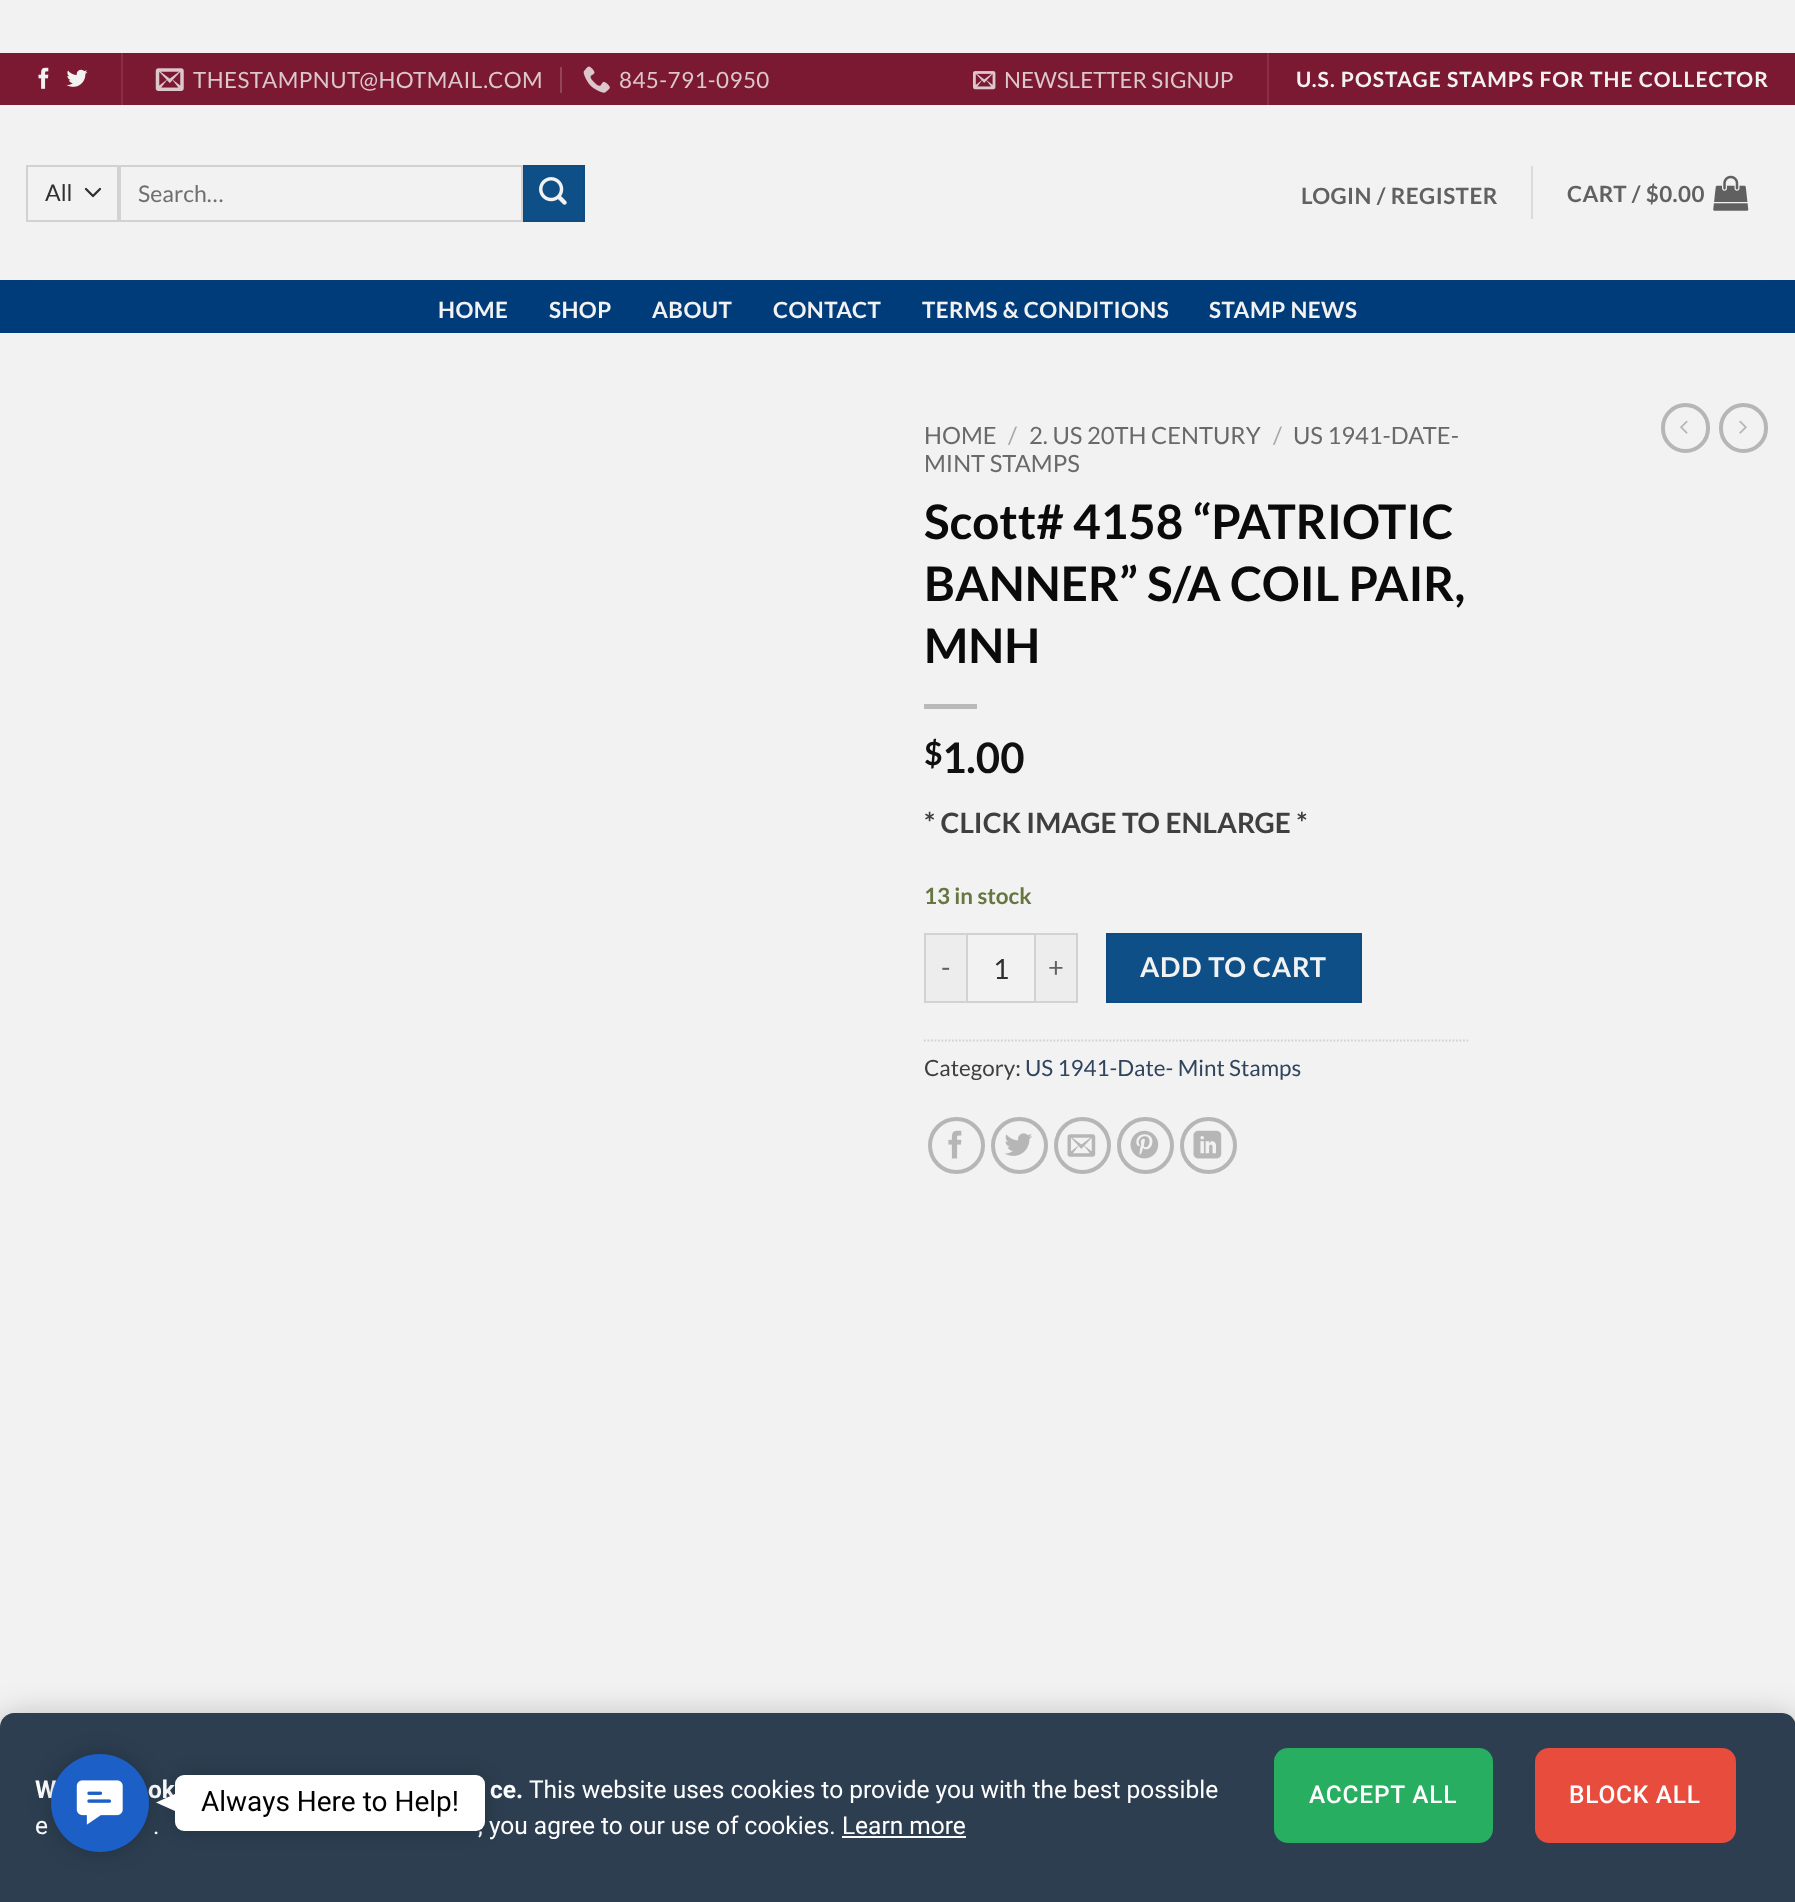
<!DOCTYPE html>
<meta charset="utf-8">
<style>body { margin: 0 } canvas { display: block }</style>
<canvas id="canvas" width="1795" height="1902"></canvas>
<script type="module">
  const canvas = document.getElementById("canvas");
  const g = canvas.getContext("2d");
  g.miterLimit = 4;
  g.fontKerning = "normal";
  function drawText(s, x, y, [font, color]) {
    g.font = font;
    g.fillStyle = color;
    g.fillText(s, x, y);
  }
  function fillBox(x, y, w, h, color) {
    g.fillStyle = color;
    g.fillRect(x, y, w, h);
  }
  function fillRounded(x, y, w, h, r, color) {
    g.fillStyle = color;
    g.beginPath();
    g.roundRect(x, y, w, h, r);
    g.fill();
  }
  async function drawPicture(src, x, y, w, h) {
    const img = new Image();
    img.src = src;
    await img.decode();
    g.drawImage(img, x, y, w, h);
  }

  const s1 = ["22.4px Lato", "#DBC7CC"];
  const s2 = ["bold 21px Lato", "#F2F2F2"];
  const s3 = ["23px Lato", "#303030"];
  const s4 = ["23px Lato", "#6F6F6F"];
  const s5 = ["bold 22.4px Lato", "#616161"];
  const s6 = ["bold 22.4px Lato", "#F2F2F2"];
  const s7 = ["23.75px Lato", "#696969"];
  const s8 = ["23.75px Lato", "#A9A9A9"];
  const s9 = ["bold 47.6px Lato", "#0A0A0A"];
  const s10 = ["bold 32px Lato", "#101010"];
  const s11 = ["bold 42px Lato", "#101010"];
  const s12 = ["bold 28px Lato", "#3F3F3F"];
  const s13 = ["bold 22.4px Lato", "#667640"];
  const s14 = ["27.25px Lato", "#616161"];
  const s15 = ["28px Lato", "#303030"];
  const s16 = ["bold 27.25px Lato", "#F2F2F2"];
  const s17 = ["22.4px Lato", "#3F3F3F"];
  const s18 = ["22.4px Lato", "#30445D"];
  const s19 = ["bold 24.5px Roboto", "#FFFFFF"];
  const s20 = ["24.5px Roboto", "#FFFFFF"];
  const s21 = ["500 24.5px Roboto", "#FFFFFF"];
  const s22 = ["28px Roboto", "#000000"];

  fillBox(0, 0, 1795, 1902, "#F2F2F2");
  fillBox(0, 53, 1795, 52, "#7C1932");
  await drawPicture("pic1.png", 38, 67, 11, 22);
  await drawPicture("pic2.png", 66, 69, 22, 18);
  fillBox(121, 53, 2, 52, "#882F45");
  await drawPicture("pic3.png", 155, 68, 29, 23);
  g.letterSpacing = "0.45px";
  drawText("THESTAMPNUT@HOTMAIL.COM", 193, 88, s1);
  fillBox(560, 67, 2, 26, "#934458");
  await drawPicture("pic4.png", 583, 66, 27, 27);
  drawText("845-791-0950", 619, 88, s1);
  await drawPicture("pic5.png", 973, 71, 23, 19);
  g.letterSpacing = "0px";
  drawText("NEWSLETTER SIGNUP", 1004, 88, s1);
  fillBox(1267, 53, 2, 52, "#882F45");
  g.letterSpacing = "1.05px";
  drawText("U.S. POSTAGE STAMPS FOR THE COLLECTOR", 1296, 87, s2);
  g.beginPath();
  g.moveTo(86, 189);
  g.lineTo(93, 196);
  g.lineTo(100, 189);
  g.strokeStyle = "#303030";
  g.lineWidth = 2.3;
  g.lineCap = "round";
  g.lineJoin = "round";
  g.stroke();
  g.strokeStyle = "#D2D2D2";
  g.lineWidth = 2;
  g.lineJoin = "miter";
  g.strokeRect(27, 166, 91, 55);
  g.letterSpacing = "0px";
  drawText("All", 45, 201, s3);
  g.strokeRect(120, 166, 402, 55);
  drawText("Search…", 138, 202, s4);
  g.fillStyle = "#0E4F88";
  g.beginPath();
  g.rect(524, 166, 60, 55);
  g.fill();
  g.strokeStyle = "#0D4B81";
  g.stroke();
  await drawPicture("pic6.png", 539, 177, 28, 28);
  g.letterSpacing = "0.45px";
  drawText("LOGIN / REGISTER", 1301, 204, s5);
  fillBox(1531, 166, 2, 53, "#DBDBDB");
  drawText("CART / $0.00", 1567, 202, s5);
  await drawPicture("pic7.png", 1713, 175, 36, 36);
  fillBox(0, 280, 1795, 53, "#003C79");
  fillBox(26, 280, 1743, 2, "#073C73");
  drawText("HOME", 438, 318, s6);
  drawText("SHOP", 549, 318, s6);
  drawText("ABOUT", 652, 318, s6);
  drawText("CONTACT", 773, 318, s6);
  drawText("TERMS & CONDITIONS", 922, 318, s6);
  drawText("STAMP NEWS", 1209, 318, s6);
  g.letterSpacing = "0px";
  drawText("HOME", 924, 444, s7);
  drawText("/", 1008, 444, s8);
  drawText("2. US 20TH CENTURY", 1029, 444, s7);
  drawText("/", 1273, 444, s8);
  drawText("US 1941-DATE-", 1293, 444, s7);
  drawText("MINT STAMPS", 924, 472, s7);
  drawText("Scott# 4158 “PATRIOTIC", 924, 539, s9);
  drawText("BANNER” S/A COIL PAIR,", 924, 601, s9);
  drawText("MNH", 924, 663, s9);
  fillBox(924, 704, 53, 5, "#BABABA");
  drawText("$", 924, 765, s10);
  drawText("1.00", 942, 773, s11);
  drawText("* CLICK IMAGE TO ENLARGE *", 924, 833, s12);
  drawText("13 in stock", 924, 904, s13);
  fillBox(926, 935, 40, 66, "#EDEDED");
  fillBox(924, 933, 42, 2, "#D2D2D2");
  fillBox(924, 1001, 42, 2, "#D2D2D2");
  fillBox(924, 933, 2, 70, "#D2D2D2");
  g.letterSpacing = "0.75px";
  drawText("-", 941, 977, s14);
  g.strokeStyle = "#D2D2D2";
  g.strokeRect(967, 934, 68, 68);
  g.letterSpacing = "0px";
  drawText("1", 993, 979, s15);
  fillBox(1036, 935, 40, 66, "#EDEDED");
  fillBox(1036, 933, 42, 2, "#D2D2D2");
  fillBox(1076, 933, 2, 70, "#D2D2D2");
  fillBox(1036, 1001, 42, 2, "#D2D2D2");
  g.letterSpacing = "0.75px";
  drawText("+", 1048, 977, s14);
  g.fillStyle = "#0E4F88";
  g.beginPath();
  g.rect(1107, 934, 254, 68);
  g.fill();
  g.strokeStyle = "#0D4B81";
  g.stroke();
  drawText("ADD TO CART", 1140, 977, s16);
  g.beginPath();
  g.moveTo(924, 1040.5);
  g.lineTo(1470, 1040.5);
  g.strokeStyle = "#D2D2D2";
  g.lineWidth = 1.8;
  g.lineCap = "butt";
  g.setLineDash([1.75, 1.75]);
  g.stroke();
  g.letterSpacing = "0px";
  drawText("Category:", 924, 1076, s17);
  drawText("US 1941-Date- Mint Stamps", 1025, 1076, s18);
  g.beginPath();
  g.arc(956.5, 1145.5, 26.5, 0, Math.PI * 2);
  g.strokeStyle = "#B6B6B6";
  g.lineWidth = 4;
  g.setLineDash([]);
  g.stroke();
  await drawPicture("pic8.png", 948, 1130, 14, 29);
  g.beginPath();
  g.arc(1019.5, 1145.5, 26.5, 0, Math.PI * 2);
  g.stroke();
  await drawPicture("pic9.png", 1005, 1133, 27, 23);
  g.beginPath();
  g.arc(1082.5, 1145.5, 26.5, 0, Math.PI * 2);
  g.stroke();
  await drawPicture("pic10.png", 1067, 1134, 29, 23);
  g.beginPath();
  g.arc(1145.5, 1145.5, 26.5, 0, Math.PI * 2);
  g.stroke();
  await drawPicture("pic11.png", 1130, 1130, 29, 29);
  g.beginPath();
  g.arc(1208.5, 1145.5, 26.5, 0, Math.PI * 2);
  g.stroke();
  await drawPicture("pic12.png", 1193, 1130, 29, 29);
  g.beginPath();
  g.roundRect(1663, 405, 45, 46, 22.5);
  g.stroke();
  await drawPicture("pic13.png", 1680, 420, 8, 14);
  g.beginPath();
  g.roundRect(1721, 405, 45, 46, 22.5);
  g.stroke();
  await drawPicture("pic14.png", 1739, 420, 8, 14);
  g.fillStyle = "rgba(0, 0, 0, 0.3)";
  g.filter = "blur(17.5px)";
  g.beginPath();
  g.roundRect(0, 1720, 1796, 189, 14);
  g.fill();
  g.filter = "none";
  g.fillStyle = "#2C3E50";
  g.beginPath();
  g.moveTo(14, 1713);
  g.lineTo(1782, 1713);
  g.bezierCurveTo(1789.5, 1713, 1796, 1719.5, 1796, 1727);
  g.lineTo(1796, 1902);
  g.lineTo(0, 1902);
  g.lineTo(0, 1727);
  g.bezierCurveTo(0, 1719.5, 6.5, 1713, 14, 1713);
  g.closePath();
  g.fill();
  drawText("W", 35, 1798, s19);
  drawText("ok", 148, 1798, s19);
  drawText("ce.", 490, 1798, s19);
  drawText("This website uses cookies to provide you with the best possible", 529, 1798, s20);
  drawText("e", 35, 1834, s20);
  drawText(".", 153, 1834, s20);
  drawText(", you agree to our use of cookies. Learn more", 478, 1834, s20);
  fillBox(842, 1836, 124, 2, "#FFFFFF");
  fillRounded(1274, 1748, 219, 95, 14, "#27AE60");
  g.letterSpacing = "0.75px";
  drawText("ACCEPT ALL", 1309, 1803, s21);
  fillRounded(1535, 1748, 201, 95, 14, "#E74C3C");
  drawText("BLOCK ALL", 1569, 1803, s21);
  g.fillStyle = "rgba(0, 0, 0, 0.2)";
  g.filter = "blur(10.5px)";
  g.beginPath();
  g.roundRect(51, 1754, 98, 98, 49);
  g.fill();
  g.filter = "none";
  g.fillStyle = "#1C5FC6";
  g.beginPath();
  g.arc(100, 1803, 49, 0, Math.PI * 2);
  g.fill();
  await drawPicture("pic15.png", 76, 1780, 47, 45);
  g.fillStyle = "rgba(0, 0, 0, 0.2)";
  g.filter = "blur(9px)";
  g.beginPath();
  g.roundRect(175, 1775, 310, 56, 9);
  g.fill();
  g.filter = "none";
  fillRounded(175, 1775, 310, 56, 9, "#FFFFFF");
  g.beginPath();
  g.moveTo(175, 1794);
  g.lineTo(175, 1811);
  g.lineTo(156, 1802.5);
  g.closePath();
  g.fill();
  g.letterSpacing = "0px";
  drawText("Always Here to Help!", 201, 1811, s22);
</script>
